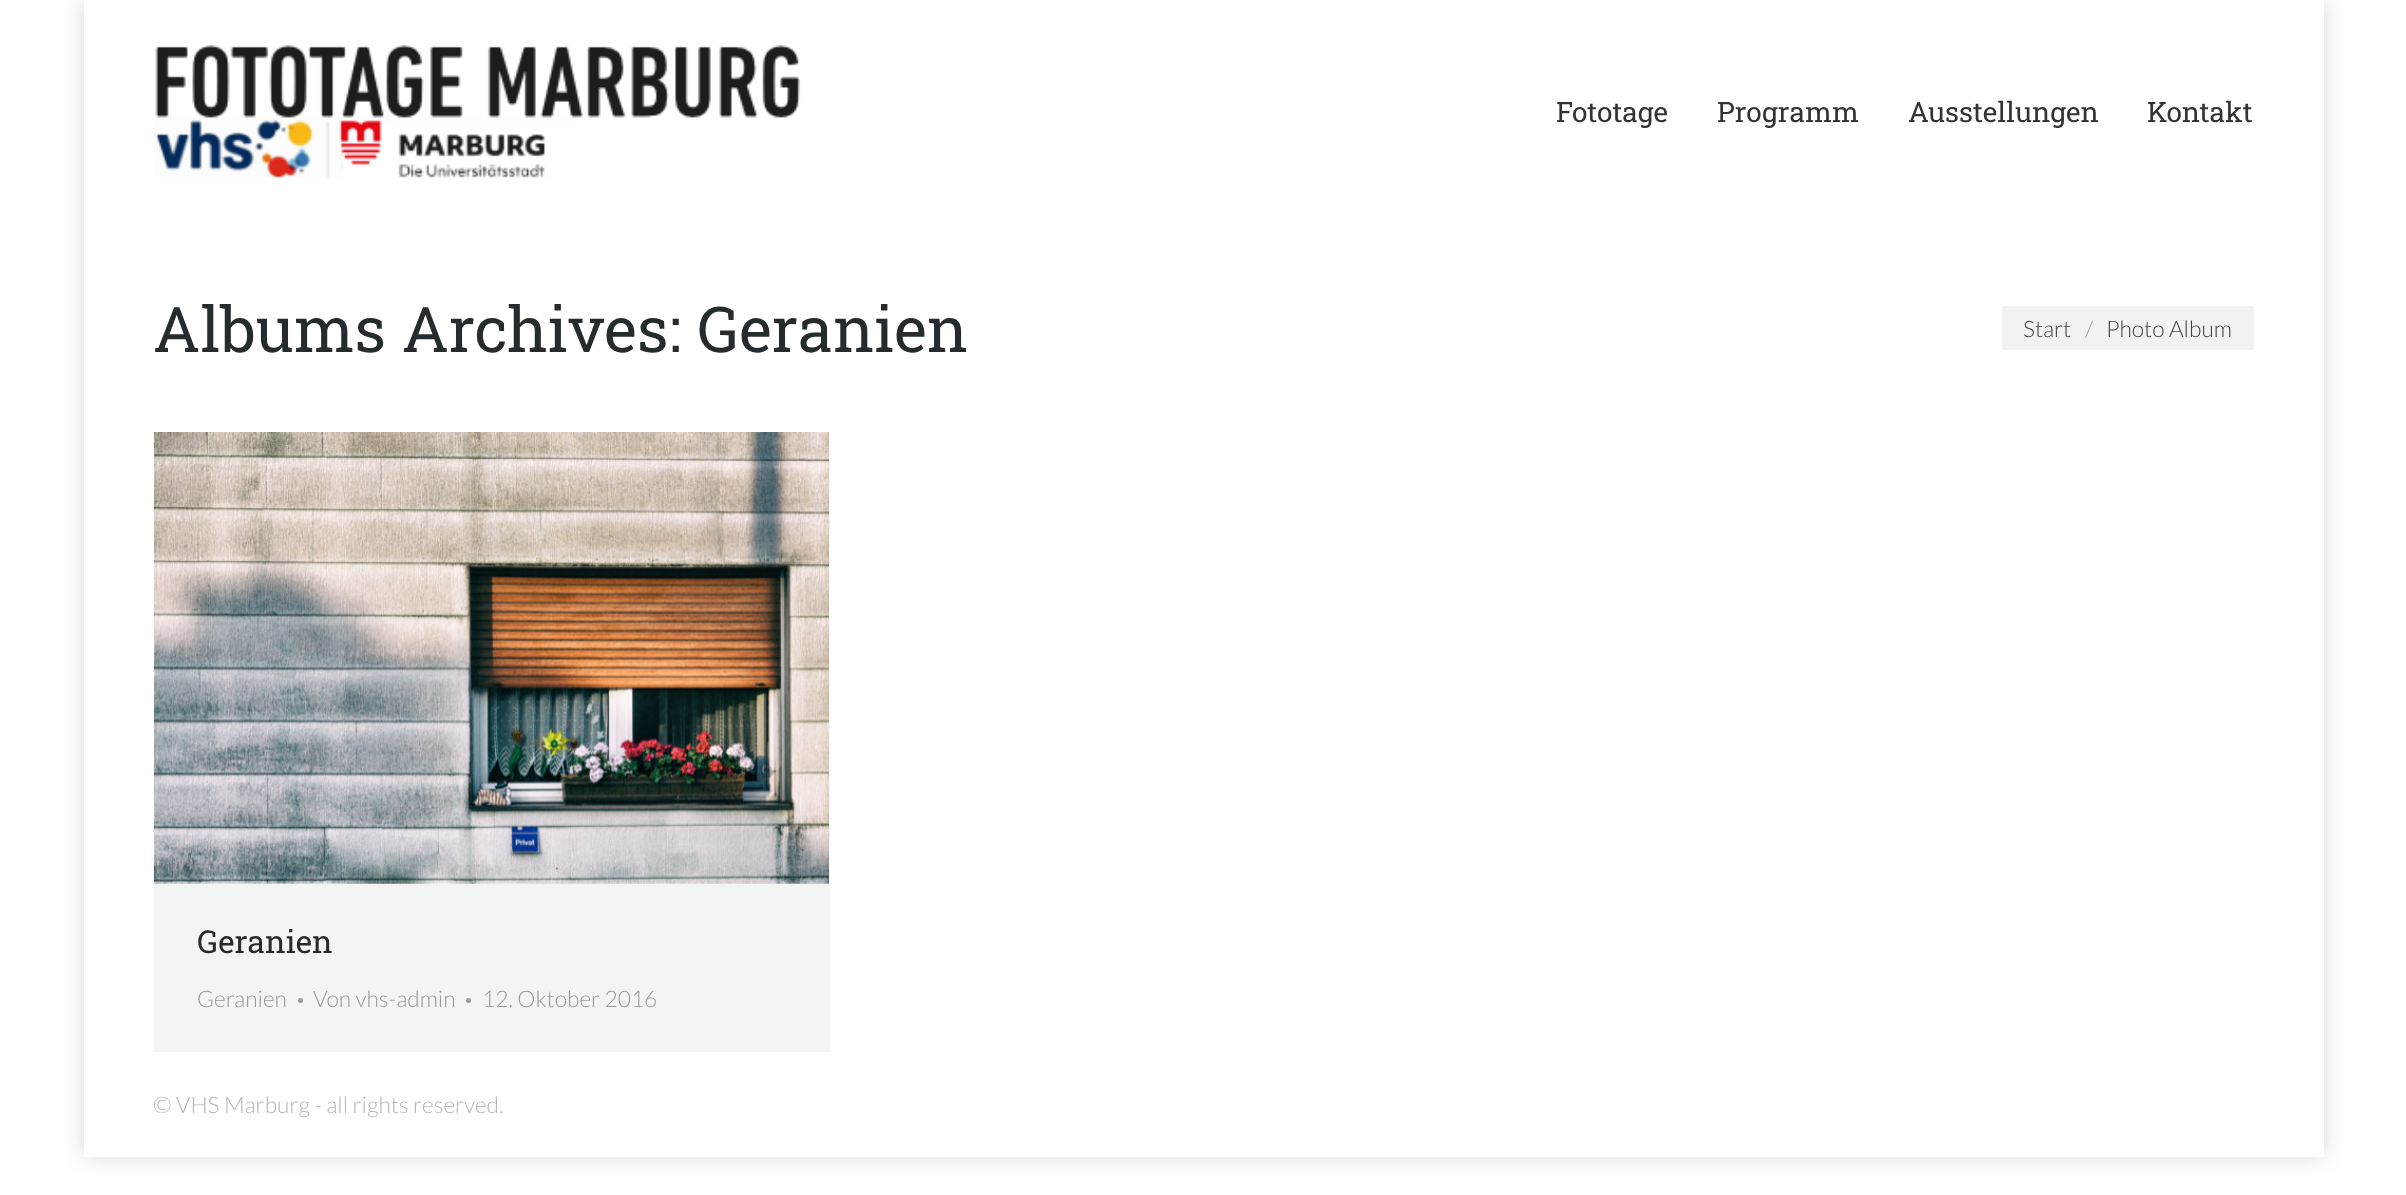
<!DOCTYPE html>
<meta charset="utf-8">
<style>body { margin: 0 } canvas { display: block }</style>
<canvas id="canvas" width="2406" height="1195"></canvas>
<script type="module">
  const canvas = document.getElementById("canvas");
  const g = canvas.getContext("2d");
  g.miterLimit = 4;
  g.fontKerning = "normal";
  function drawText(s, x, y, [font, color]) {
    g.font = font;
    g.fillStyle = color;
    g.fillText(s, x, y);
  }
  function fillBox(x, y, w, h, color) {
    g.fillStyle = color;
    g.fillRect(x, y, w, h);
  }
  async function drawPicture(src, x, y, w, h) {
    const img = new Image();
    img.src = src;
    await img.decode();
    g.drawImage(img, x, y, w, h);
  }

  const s1 = ["28px Roboto Slab", "#333333"];
  const s2 = ["63px Roboto Slab", "#262B2E"];
  const s3 = ["300 22.75px Lato", "#424242"];
  const s4 = ["300 22.75px Lato", "#999999"];
  const s5 = ["31.5px Roboto Slab", "#262B2E"];
  const s6 = ["300 22.75px Lato", "#B3B5B6"];

  fillBox(0, 0, 2406, 1195, "#FFFFFF");
  g.fillStyle = "rgba(0, 0, 0, 0.15)";
  g.filter = "blur(10.5px)";
  g.beginPath();
  g.rect(84, 0, 2240, 1157);
  g.fill();
  g.filter = "none";
  fillBox(84, 0, 2240, 1157, "#FFFFFF");
  await drawPicture("pic1.png", 154, 45, 647, 134);
  drawText("Fototage", 1556, 122, s1);
  drawText("Programm", 1717, 122, s1);
  drawText("Ausstellungen", 1908, 122, s1);
  drawText("Kontakt", 2147, 122, s1);
  drawText("Albums Archives: Geranien", 153, 352, s2);
  fillBox(2002, 306, 252, 44, "#F2F2F2");
  drawText("Start", 2023, 337, s3);
  drawText("/", 2085, 337, s4);
  drawText("Photo Album", 2106, 337, s3);
  fillBox(154, 432, 676, 620, "#F3F4F4");
  await drawPicture("pic2.png", 154, 432, 675, 452);
  drawText("Geranien", 197, 953, s5);
  drawText("Geranien", 197, 1007, s4);
  g.beginPath();
  g.arc(300.5, 1000.5, 2.5, 0, Math.PI * 2);
  g.fill();
  drawText("Von vhs-admin", 313, 1007, s4);
  g.beginPath();
  g.arc(468.5, 1000.5, 2.5, 0, Math.PI * 2);
  g.fill();
  drawText("12. Oktober 2016", 482, 1007, s4);
  drawText("© VHS Marburg - all rights reserved.", 153, 1113, s6);
</script>
